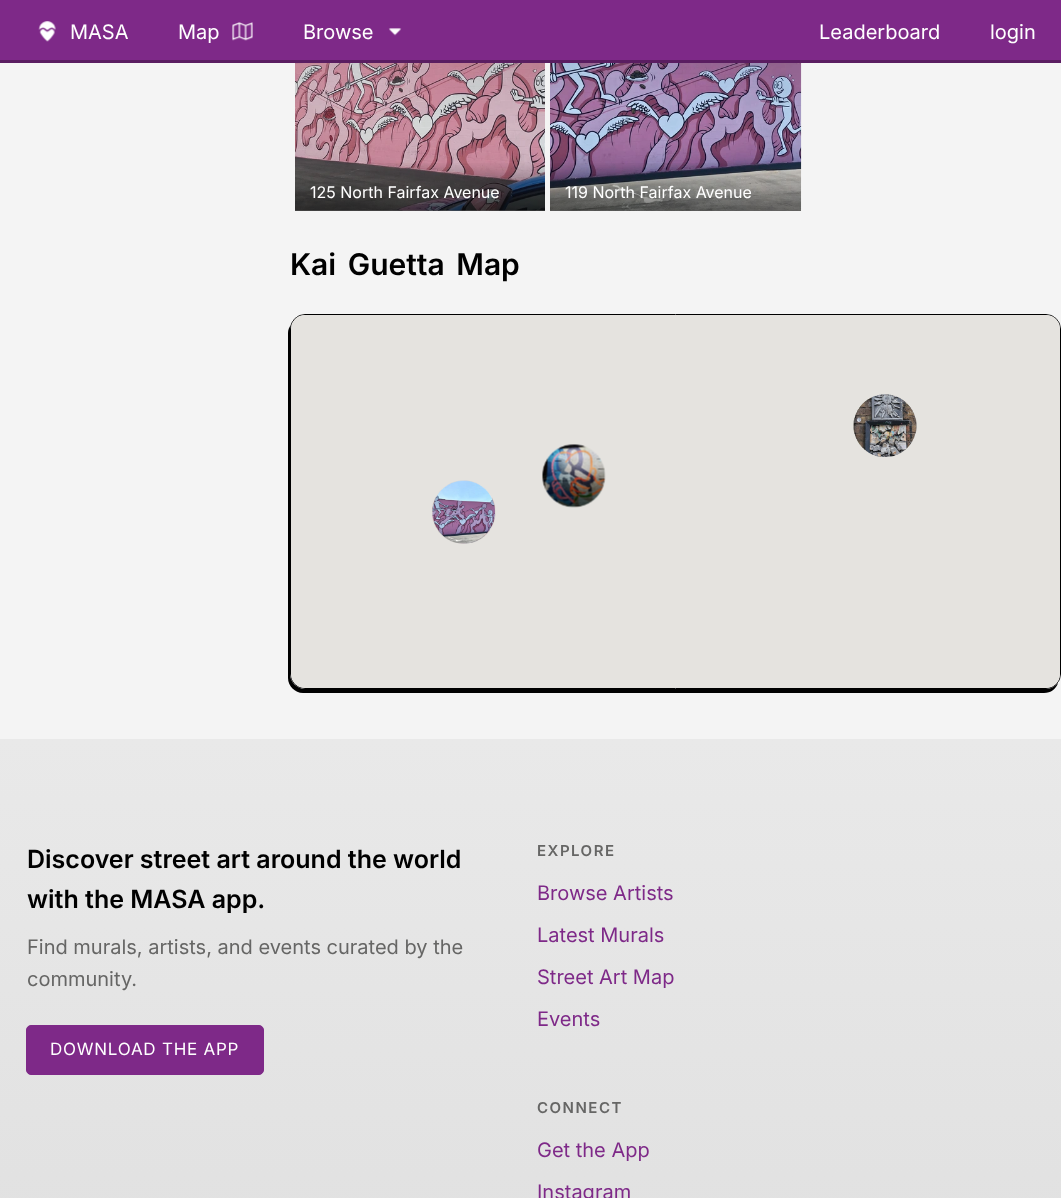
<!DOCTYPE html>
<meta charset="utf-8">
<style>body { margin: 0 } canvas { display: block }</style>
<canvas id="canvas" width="1061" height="1198"></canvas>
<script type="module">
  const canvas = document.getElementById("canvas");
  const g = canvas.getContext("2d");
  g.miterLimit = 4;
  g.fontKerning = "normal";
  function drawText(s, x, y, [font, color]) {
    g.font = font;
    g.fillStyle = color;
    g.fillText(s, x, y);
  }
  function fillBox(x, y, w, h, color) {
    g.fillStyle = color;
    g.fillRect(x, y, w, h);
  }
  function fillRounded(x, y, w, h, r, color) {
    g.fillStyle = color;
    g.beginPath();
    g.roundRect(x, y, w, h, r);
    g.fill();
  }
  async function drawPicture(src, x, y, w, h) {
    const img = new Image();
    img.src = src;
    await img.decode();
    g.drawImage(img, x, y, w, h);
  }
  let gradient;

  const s1 = ["20px Inter", "#FFFFFF"];
  const s2 = ["16px Inter", "#FFFFFF"];
  const s3 = ["600 30px Inter", "#000000"];
  const s4 = ["600 25px Inter", "#000000"];
  const s5 = ["20px Inter", "#666665"];
  const s6 = ["17px Inter", "#FFFFFF"];
  const s7 = ["600 15px Inter", "#666665"];
  const s8 = ["20px Inter", "#7E2988"];

  fillBox(0, 0, 1061, 1198, "#F4F4F4");
  fillBox(0, 0, 1061, 60, "#7E2988");
  fillBox(0, 60, 1061, 3, "#5A1D61");
  await drawPicture("pic1.png", 38, 21, 18, 21);
  drawText("MASA", 70, 39, s1);
  drawText("Map", 178, 39, s1);
  await drawPicture("pic2.png", 232, 22, 21, 19);
  drawText("Browse", 303, 39, s1);
  await drawPicture("pic3.png", 388, 28, 14, 8);
  drawText("Leaderboard", 819, 39, s1);
  drawText("login", 990, 39, s1);
  fillBox(295, 210, 250, 1, "#CCCCCC");
  await drawPicture("pic4.png", 295, 63, 250, 148);
  gradient = g.createLinearGradient(420, 211, 420, 161);
  gradient.addColorStop(0, "rgba(0, 0, 0, 0.53)");
  gradient.addColorStop(1, "rgba(0, 0, 0, 0)");
  g.fillStyle = gradient;
  g.fillRect(295, 163, 250, 48);
  drawText("125 North Fairfax Avenue", 310, 198, s2);
  fillBox(550, 210, 251, 1, "#CCCCCC");
  await drawPicture("pic5.png", 550, 63, 252, 148);
  gradient = g.createLinearGradient(676, 211, 676, 161);
  gradient.addColorStop(0, "rgba(0, 0, 0, 0.53)");
  gradient.addColorStop(1, "rgba(0, 0, 0, 0)");
  g.fillStyle = gradient;
  g.fillRect(550, 163, 251, 48);
  drawText("119 North Fairfax Avenue", 565, 198, s2);
  g.wordSpacing = "4px";
  drawText("Kai Guetta Map", 290, 275, s3);
  g.beginPath();
  g.moveTo(291, 325);
  g.bezierCurveTo(289, 327, 288, 330, 288, 333);
  g.lineTo(288, 678);
  g.bezierCurveTo(288, 686, 295, 693, 303, 693);
  g.lineTo(1044, 693);
  g.bezierCurveTo(1051, 693, 1056, 689, 1058, 683);
  g.bezierCurveTo(1055, 686, 1051, 689, 1046, 689);
  g.lineTo(305, 689);
  g.bezierCurveTo(297, 689, 290, 682, 290, 674);
  g.lineTo(290, 329);
  g.closePath();
  g.fill();
  g.beginPath();
  g.roundRect(290.5, 314.5, 770, 374, 14.5);
  g.strokeStyle = "#000000";
  g.stroke();
  fillRounded(291, 315, 769, 373, 14, "#E5E3DF");
  await drawPicture("pic6.png", 853, 394, 64, 63);
  await drawPicture("pic7.png", 853, 394, 64, 63);
  await drawPicture("pic8.png", 432, 480, 64, 64);
  await drawPicture("pic9.png", 542, 444, 64, 64);
  await drawPicture("pic10.png", 432, 480, 63, 64);
  gradient = g.createLinearGradient(531, 739, 531, 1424);
  gradient.addColorStop(0, "#E9E9E9");
  gradient.addColorStop(1, "#DEDEDE");
  g.fillStyle = gradient;
  g.fillRect(0, 739, 1061, 459);
  g.wordSpacing = "0px";
  drawText("Discover street art around the world", 27, 868, s4);
  drawText("with the MASA app.", 27, 908, s4);
  drawText("Find murals, artists, and events curated by the", 27, 954, s5);
  drawText("community.", 27, 986, s5);
  g.fillStyle = "#7E2988";
  g.beginPath();
  g.roundRect(26.5, 1025.5, 237, 49, 4.5);
  g.fill();
  g.strokeStyle = "#7E2988";
  g.stroke();
  g.letterSpacing = "0.75px";
  drawText("DOWNLOAD THE APP", 50, 1055, s6);
  g.letterSpacing = "1.5px";
  drawText("EXPLORE", 537, 856, s7);
  g.letterSpacing = "0px";
  drawText("Browse Artists", 537, 900, s8);
  drawText("Latest Murals", 537, 942, s8);
  drawText("Street Art Map", 537, 984, s8);
  drawText("Events", 537, 1026, s8);
  g.letterSpacing = "1.5px";
  drawText("CONNECT", 537, 1113, s7);
  g.letterSpacing = "0px";
  drawText("Get the App", 537, 1157, s8);
  drawText("Instagram", 537, 1199, s8);
</script>
